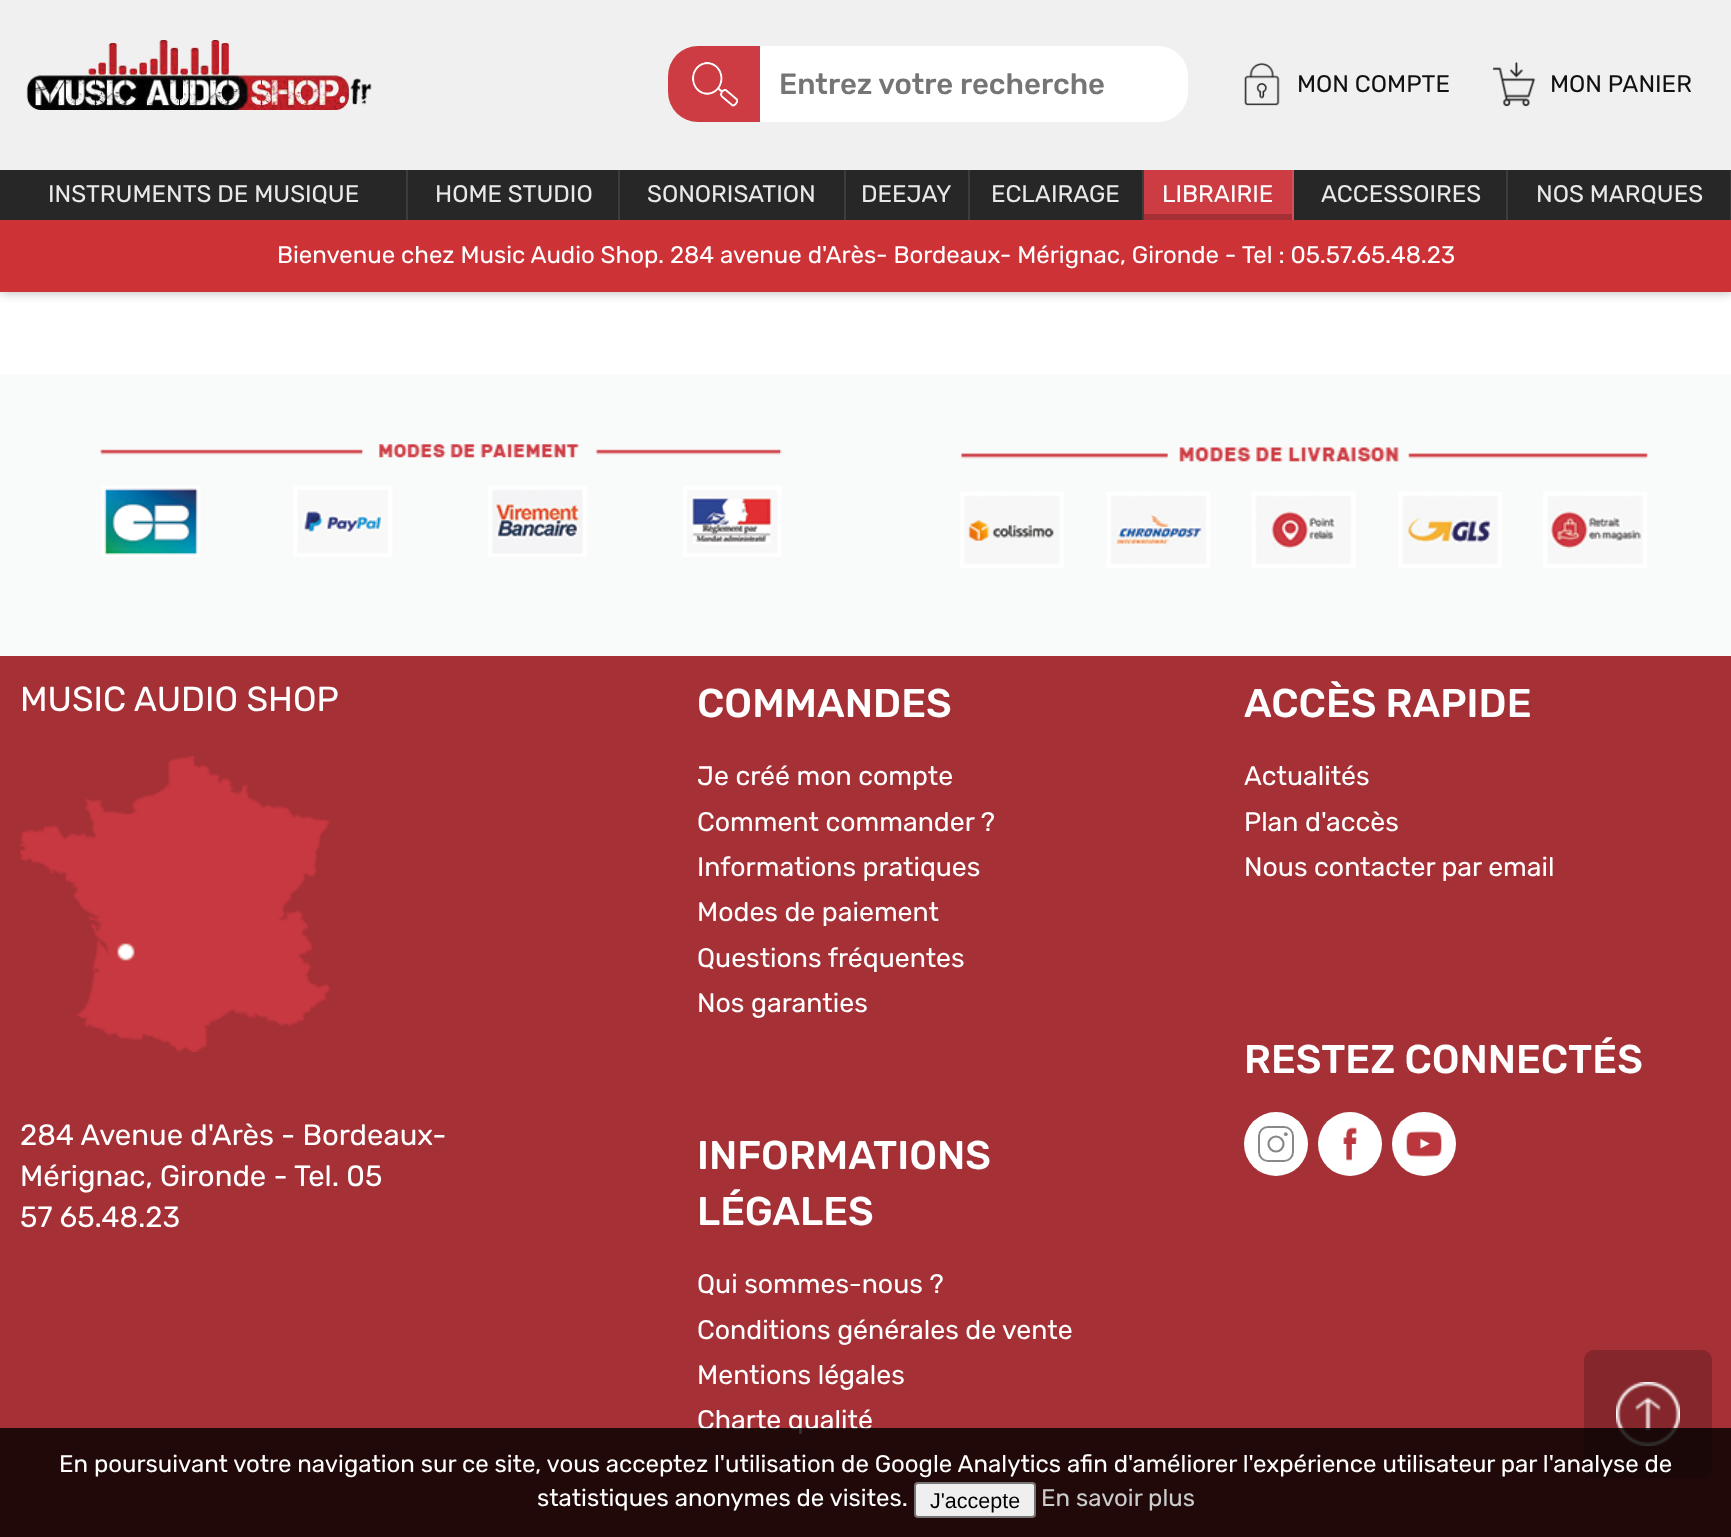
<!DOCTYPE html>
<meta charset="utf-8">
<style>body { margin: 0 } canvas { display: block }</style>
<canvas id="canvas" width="1731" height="1537"></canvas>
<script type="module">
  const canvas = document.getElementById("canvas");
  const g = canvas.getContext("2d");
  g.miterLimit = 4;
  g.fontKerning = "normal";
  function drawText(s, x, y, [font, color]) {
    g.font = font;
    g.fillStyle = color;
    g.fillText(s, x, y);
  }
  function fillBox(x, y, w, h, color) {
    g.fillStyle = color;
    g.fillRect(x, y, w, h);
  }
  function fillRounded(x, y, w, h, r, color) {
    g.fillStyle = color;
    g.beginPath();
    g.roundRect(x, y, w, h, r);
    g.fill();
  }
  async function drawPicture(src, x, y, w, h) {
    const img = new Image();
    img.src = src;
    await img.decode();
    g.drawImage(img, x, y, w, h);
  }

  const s1 = ["500 29.3px Rubik", "#757575"];
  const s2 = ["24px Rubik", "#111111"];
  const s3 = ["24px Rubik", "#E9E9E9"];
  const s4 = ["24px Rubik", "#FFFFFF"];
  const s5 = ["34.75px Rubik", "#FFFFFF"];
  const s6 = ["29.3px Rubik", "#FFFFFF"];
  const s7 = ["500 40px Rubik", "#FFFFFF"];
  const s8 = ["26.7px Rubik", "#FFFFFF"];
  const s9 = ["21.5px Liberation Sans", "#000000"];
  const s10 = ["24px Rubik", "#CCCCCC"];

  fillBox(0, 0, 1731, 1537, "#A53036");
  fillBox(0, 292, 1731, 82, "#FFFFFF");
  g.fillStyle = "rgba(0, 0, 0, 0.3)";
  g.filter = "blur(6px)";
  g.beginPath();
  g.rect(0, -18, 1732, 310);
  g.fill();
  g.filter = "none";
  fillBox(0, 0, 1731, 170, "#F0F0F0");
  await drawPicture("pic1.png", 26, 40, 346, 70);
  g.fillStyle = "#CD3C43";
  g.beginPath();
  g.roundRect(668, 46, 92, 76, [30, 0, 0, 30]);
  g.fill();
  await drawPicture("pic2.png", 692, 62, 46, 45);
  g.fillStyle = "#FFFFFF";
  g.beginPath();
  g.roundRect(760, 46, 428, 76, [0, 30, 30, 0]);
  g.fill();
  drawText("Entrez votre recherche", 779, 94, s1);
  await drawPicture("pic3.png", 1244, 62, 36, 44);
  drawText("MON COMPTE", 1297, 92, s2);
  await drawPicture("pic4.png", 1492, 61, 44, 46);
  drawText("MON PANIER", 1550, 92, s2);
  fillBox(0, 170, 1730, 50, "#272727");
  fillBox(406, 170, 2, 50, "#3D3D3D");
  drawText("INSTRUMENTS DE MUSIQUE", 48, 202, s3);
  fillBox(618, 170, 2, 50, "#3D3D3D");
  drawText("HOME STUDIO", 435, 202, s3);
  fillBox(844, 170, 2, 50, "#3D3D3D");
  drawText("SONORISATION", 647, 202, s3);
  fillBox(968, 170, 2, 50, "#3D3D3D");
  drawText("DEEJAY", 861, 202, s3);
  fillBox(1142, 170, 2, 50, "#3D3D3D");
  drawText("ECLAIRAGE", 991, 202, s3);
  fillBox(1144, 170, 148, 44, "#CD3C43");
  fillBox(1292, 170, 2, 50, "#D25056");
  drawText("LIBRAIRIE", 1162, 202, s4);
  fillBox(1144, 214, 148, 6, "#A43036");
  fillBox(1506, 170, 2, 50, "#3D3D3D");
  drawText("ACCESSOIRES", 1321, 202, s3);
  fillBox(1730, 170, 1, 50, "#3D3D3D");
  drawText("NOS MARQUES", 1536, 202, s3);
  fillBox(0, 220, 1731, 72, "#CD3236");
  drawText("Bienvenue chez Music Audio Shop. 284 avenue d'Arès- Bordeaux- Mérignac, Gironde - Tel : 05.57.65.48.23", 277, 263, s4);
  fillBox(0, 374, 1731, 282, "#F9FBFA");
  await drawPicture("pic5.png", 100, 444, 682, 113);
  await drawPicture("pic6.png", 960, 447, 688, 121);
  await drawPicture("pic7.png", 20, 756, 310, 296);
  drawText("MUSIC AUDIO SHOP", 20, 711, s5);
  drawText("284 Avenue d'Arès - Bordeaux-", 20, 1145, s6);
  drawText("Mérignac, Gironde - Tel. 05", 20, 1186, s6);
  drawText("57 65.48.23", 20, 1227, s6);
  drawText("COMMANDES", 697, 717, s7);
  drawText("Je créé mon compte", 697, 785, s8);
  drawText("Comment commander ?", 697, 831, s8);
  drawText("Informations pratiques", 697, 876, s8);
  drawText("Modes de paiement", 697, 921, s8);
  drawText("Questions fréquentes", 697, 967, s8);
  drawText("Nos garanties", 697, 1012, s8);
  drawText("ACCÈS RAPIDE", 1244, 717, s7);
  drawText("Actualités", 1244, 785, s8);
  drawText("Plan d'accès", 1244, 831, s8);
  drawText("Nous contacter par email", 1244, 876, s8);
  drawText("INFORMATIONS", 697, 1169, s7);
  drawText("LÉGALES", 697, 1225, s7);
  drawText("Qui sommes-nous ?", 697, 1293, s8);
  drawText("Conditions générales de vente", 697, 1339, s8);
  drawText("Mentions légales", 697, 1384, s8);
  drawText("Charte qualité", 697, 1429, s8);
  drawText("RESTEZ CONNECTÉS", 1244, 1073, s7);
  g.beginPath();
  g.arc(1276, 1144, 32, 0, Math.PI * 2);
  g.fill();
  g.beginPath();
  g.arc(1276, 1144, 7.5, 0, Math.PI * 2);
  g.strokeStyle = "#888888";
  g.lineWidth = 2.2;
  g.stroke();
  g.beginPath();
  g.roundRect(1259, 1127, 34, 34, 9);
  g.lineWidth = 2;
  g.stroke();
  g.fillStyle = "#888888";
  g.beginPath();
  g.arc(1285.8, 1134.2, 1.9, 0, Math.PI * 2);
  g.fill();
  g.fillStyle = "#FFFFFF";
  g.beginPath();
  g.arc(1350, 1144, 32, 0, Math.PI * 2);
  g.fill();
  await drawPicture("pic8.png", 1343, 1127, 14, 34);
  g.beginPath();
  g.arc(1424, 1144, 32, 0, Math.PI * 2);
  g.fill();
  await drawPicture("pic9.png", 1406, 1131, 36, 26);
  fillRounded(1584, 1350, 128, 128, 10, "#84262B");
  await drawPicture("pic10.png", 1616, 1382, 64, 64);
  fillBox(0, 1428, 1731, 109, "rgba(0, 0, 0, 0.8)");
  drawText("En poursuivant votre navigation sur ce site, vous acceptez l'utilisation de Google Analytics afin d'améliorer l'expérience utilisateur par l'analyse de", 59, 1472, s4);
  drawText("statistiques anonymes de visites.", 537, 1506, s4);
  g.fillStyle = "#EFEFEF";
  g.beginPath();
  g.roundRect(915, 1483, 120, 34, 3);
  g.fill();
  g.strokeStyle = "#767676";
  g.stroke();
  drawText("J'accepte", 930, 1508, s9);
  drawText("En savoir plus", 1041, 1506, s10);
</script>
